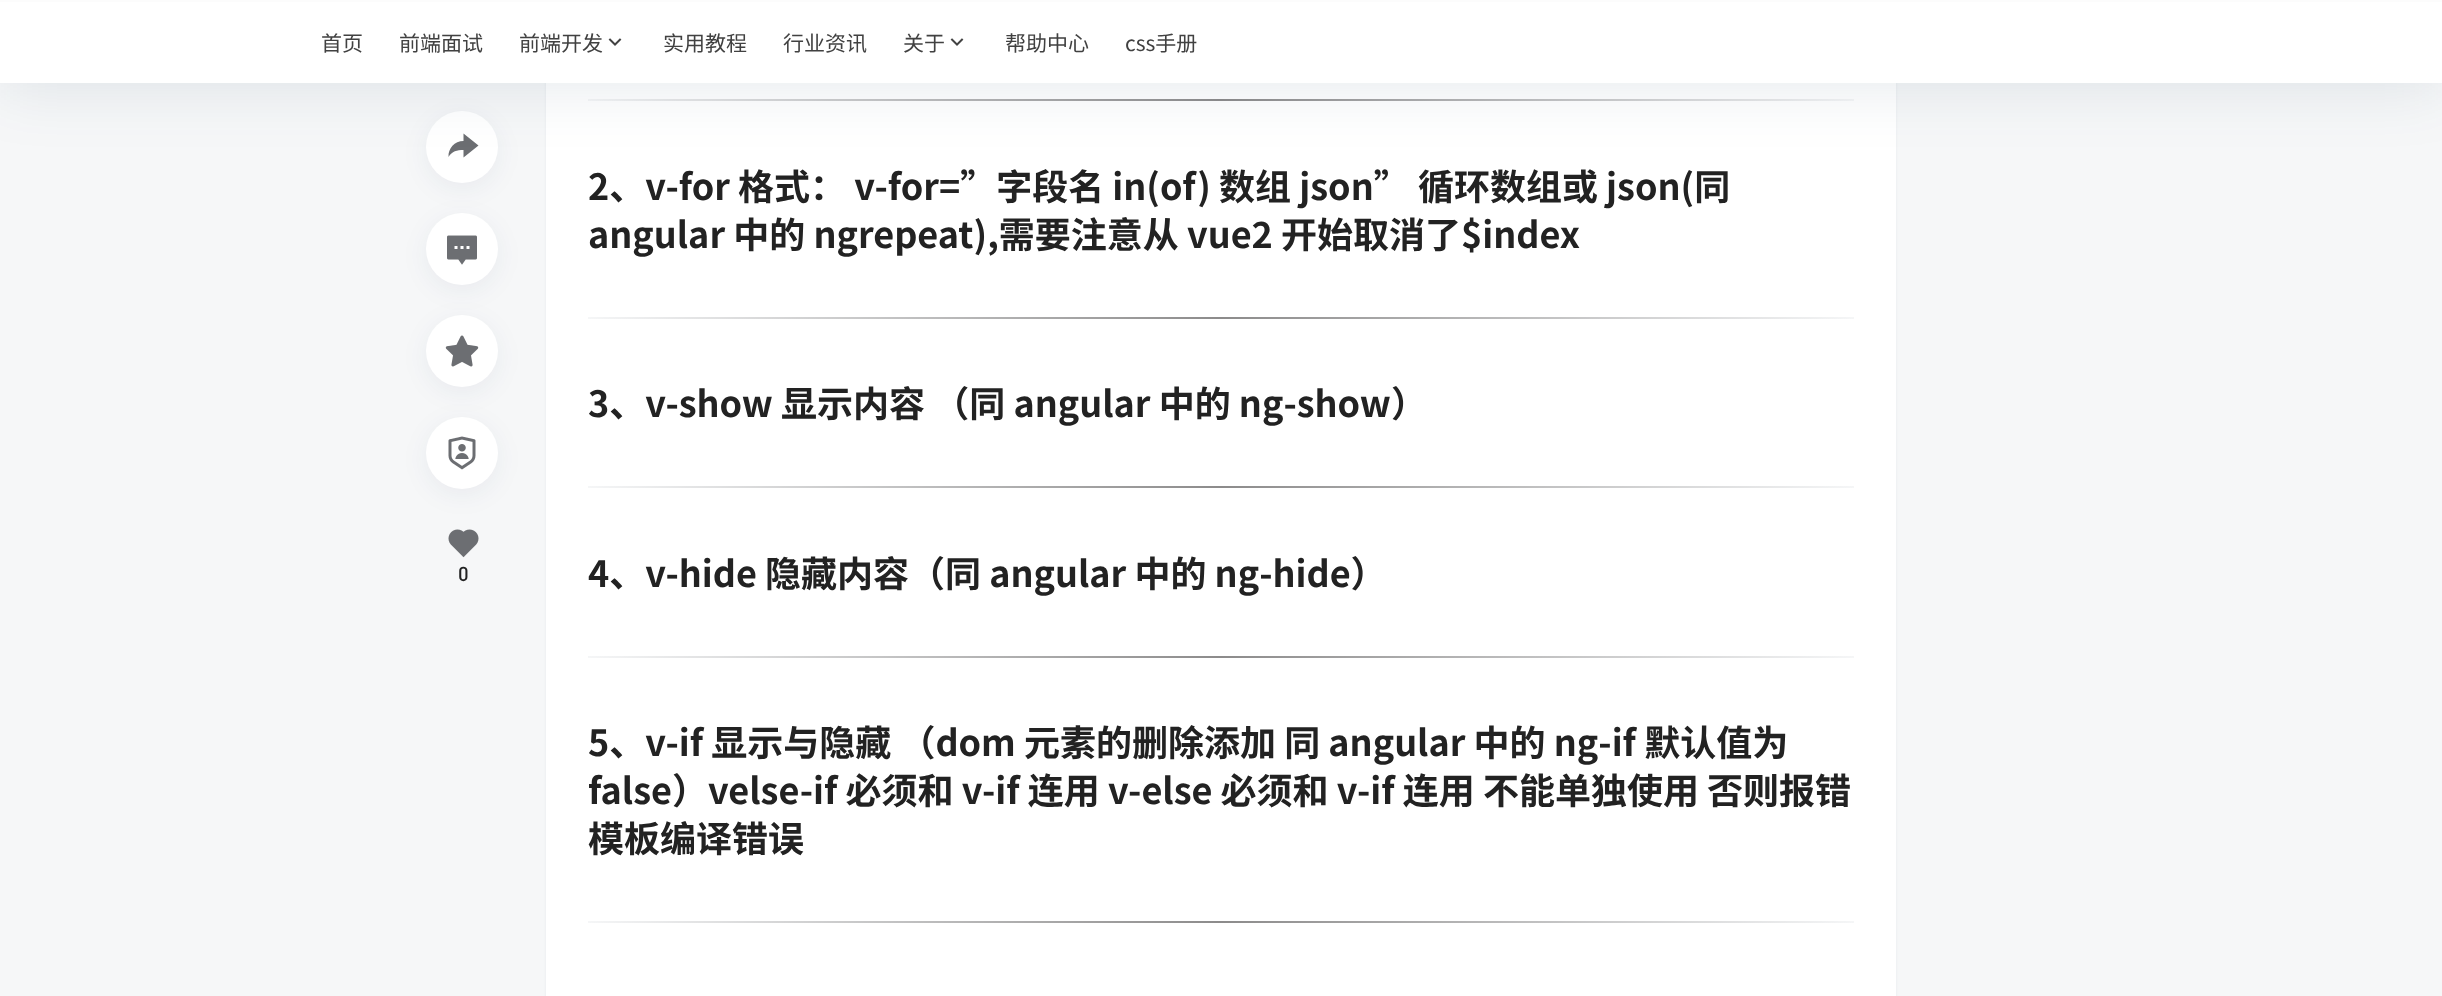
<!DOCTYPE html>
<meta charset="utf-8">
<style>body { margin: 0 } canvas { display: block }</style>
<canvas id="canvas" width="2442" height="996"></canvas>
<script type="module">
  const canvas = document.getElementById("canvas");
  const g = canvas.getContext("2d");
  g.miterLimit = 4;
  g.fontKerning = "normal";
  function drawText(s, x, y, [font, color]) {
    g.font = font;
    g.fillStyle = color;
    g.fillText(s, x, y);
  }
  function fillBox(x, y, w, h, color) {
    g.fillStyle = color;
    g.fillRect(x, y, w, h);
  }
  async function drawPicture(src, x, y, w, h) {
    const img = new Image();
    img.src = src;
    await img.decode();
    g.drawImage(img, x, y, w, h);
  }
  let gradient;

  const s1 = ["21px Noto Sans CJK SC", "#414141"];
  const s2 = ["500 20px DIN", "#222222"];
  const s3 = ["bold 36px Noto Sans CJK SC", "#222222"];

  fillBox(0, 0, 2442, 996, "#F6F7F8");
  g.fillStyle = "rgba(98, 124, 153, 0.1)";
  g.filter = "blur(1.5px)";
  g.beginPath();
  g.roundRect(546, -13, 1350, 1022, 8);
  g.fill();
  g.filter = "none";
  fillBox(546, 83, 1350, 913, "#FFFFFF");
  g.fillStyle = "rgba(13, 39, 91, 0.06)";
  g.filter = "blur(12px)";
  g.beginPath();
  g.roundRect(426, 117, 72, 72, 36);
  g.fill();
  g.filter = "none";
  g.fillStyle = "#FFFFFF";
  g.beginPath();
  g.arc(462, 147, 36, 0, Math.PI * 2);
  g.fill();
  g.fillStyle = "#6C6E72";
  g.beginPath();
  g.moveTo(463.5, 150);
  g.bezierCurveTo(457, 150, 452, 151, 448.5, 157);
  g.bezierCurveTo(448, 148.5, 454.5, 141, 463.5, 141);
  g.lineTo(463.5, 133.5);
  g.lineTo(478.5, 145.5);
  g.lineTo(463.5, 157.5);
  g.closePath();
  g.fill();
  gradient = g.createLinearGradient(588, 100, 1854, 100);
  gradient.addColorStop(0, "#F5F6F7");
  gradient.addColorStop(0.5, "#8C8B8B");
  gradient.addColorStop(1, "#F5F6F7");
  g.fillStyle = gradient;
  g.fillRect(588, 99, 1266, 2);
  g.fillStyle = "rgba(17, 58, 93, 0.1)";
  g.filter = "blur(30px)";
  g.beginPath();
  g.rect(0, -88, 2442, 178);
  g.fill();
  g.filter = "none";
  fillBox(0, 2, 2442, 81, "#FFFFFF");
  fillBox(0, 0, 2442, 2, "#FCFCFC");
  drawText("首页", 321, 51, s1);
  drawText("前端面试", 399, 51, s1);
  drawText("前端开发", 519, 51, s1);
  await drawPicture("pic1.png", 608, 38, 14, 8);
  drawText("实用教程", 663, 51, s1);
  drawText("行业资讯", 783, 51, s1);
  drawText("关于", 903, 51, s1);
  await drawPicture("pic1.png", 950, 38, 14, 8);
  drawText("帮助中心", 1005, 51, s1);
  drawText("css手册", 1125, 51, s1);
  g.fillStyle = "rgba(13, 39, 91, 0.06)";
  g.filter = "blur(12px)";
  g.beginPath();
  g.roundRect(426, 219, 72, 72, 36);
  g.fill();
  g.filter = "none";
  g.fillStyle = "#FFFFFF";
  g.beginPath();
  g.arc(462, 249, 36, 0, Math.PI * 2);
  g.fill();
  await drawPicture("pic2.png", 447, 235, 30, 30);
  g.fillStyle = "rgba(13, 39, 91, 0.06)";
  g.filter = "blur(12px)";
  g.beginPath();
  g.roundRect(426, 321, 72, 72, 36);
  g.fill();
  g.filter = "none";
  g.fillStyle = "#FFFFFF";
  g.beginPath();
  g.arc(462, 351, 36, 0, Math.PI * 2);
  g.fill();
  await drawPicture("pic3.png", 445, 335, 34, 32);
  await drawPicture("pic5.png", 448, 529, 31, 29);
  g.fillStyle = "rgba(13, 39, 91, 0.06)";
  g.filter = "blur(12px)";
  g.beginPath();
  g.roundRect(426, 423, 72, 72, 36);
  g.fill();
  g.filter = "none";
  g.fillStyle = "#FFFFFF";
  g.beginPath();
  g.arc(462, 453, 36, 0, Math.PI * 2);
  g.fill();
  await drawPicture("pic4.png", 448, 436, 28, 34);
  drawText("0", 458, 581, s2);
  drawText("2、v-for 格式： v-for=”字段名 in(of) 数组 json” 循环数组或 json(同", 588, 200, s3);
  drawText("angular 中的 ngrepeat),需要注意从 vue2 开始取消了$index", 588, 248, s3);
  gradient = g.createLinearGradient(588, 317, 1854, 317);
  gradient.addColorStop(0, "#F5F6F7");
  gradient.addColorStop(0.5, "#8C8B8B");
  gradient.addColorStop(1, "#F5F6F7");
  g.fillStyle = gradient;
  g.fillRect(588, 317, 1266, 2);
  drawText("3、v-show 显示内容 （同 angular 中的 ng-show）", 588, 417, s3);
  gradient = g.createLinearGradient(588, 487, 1854, 487);
  gradient.addColorStop(0, "#F5F6F7");
  gradient.addColorStop(0.5, "#8C8B8B");
  gradient.addColorStop(1, "#F5F6F7");
  g.fillStyle = gradient;
  g.fillRect(588, 486, 1266, 2);
  drawText("4、v-hide 隐藏内容（同 angular 中的 ng-hide）", 588, 587, s3);
  gradient = g.createLinearGradient(588, 656, 1854, 656);
  gradient.addColorStop(0, "#F5F6F7");
  gradient.addColorStop(0.5, "#8C8B8B");
  gradient.addColorStop(1, "#F5F6F7");
  g.fillStyle = gradient;
  g.fillRect(588, 656, 1266, 2);
  drawText("5、v-if 显示与隐藏 （dom 元素的删除添加 同 angular 中的 ng-if 默认值为", 588, 756, s3);
  drawText("false）velse-if 必须和 v-if 连用 v-else 必须和 v-if 连用 不能单独使用 否则报错", 588, 804, s3);
  drawText("模板编译错误", 588, 852, s3);
  gradient = g.createLinearGradient(588, 922, 1854, 922);
  gradient.addColorStop(0, "#F5F6F7");
  gradient.addColorStop(0.5, "#8C8B8B");
  gradient.addColorStop(1, "#F5F6F7");
  g.fillStyle = gradient;
  g.fillRect(588, 921, 1266, 2);
</script>
